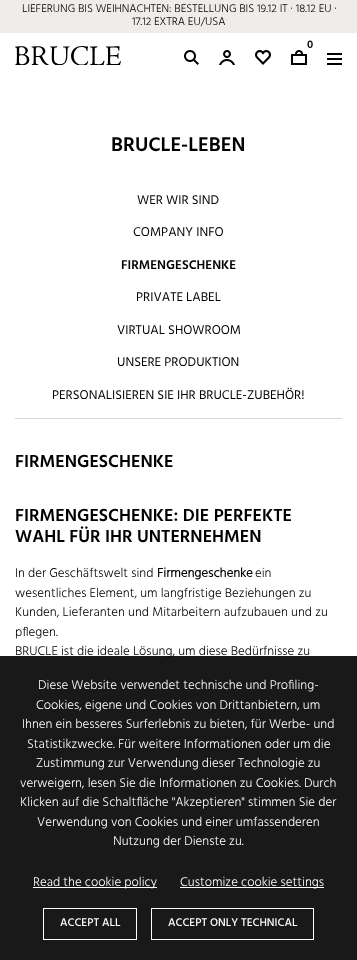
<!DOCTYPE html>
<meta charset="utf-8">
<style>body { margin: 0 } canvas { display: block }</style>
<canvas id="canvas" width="357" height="960"></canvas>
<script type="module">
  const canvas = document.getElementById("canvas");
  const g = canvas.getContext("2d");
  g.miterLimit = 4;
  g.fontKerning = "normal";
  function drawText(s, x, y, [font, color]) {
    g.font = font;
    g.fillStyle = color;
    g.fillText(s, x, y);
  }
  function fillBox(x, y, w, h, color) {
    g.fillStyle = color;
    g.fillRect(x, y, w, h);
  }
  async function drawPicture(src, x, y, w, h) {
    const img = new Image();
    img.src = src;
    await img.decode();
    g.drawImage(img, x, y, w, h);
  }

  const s1 = ["300 11.4px Hind", "#000000"];
  const s2 = ["600 11.4px Hind", "#000000"];
  const s3 = ["600 20.25px Hind", "#000000"];
  const s4 = ["13px Hind", "#000000"];
  const s5 = ["600 13px Hind", "#000000"];
  const s6 = ["600 17.9px Hind", "#000000"];
  const s7 = ["300 13px Hind", "#000000"];
  const s8 = ["bold 13px Hind", "#000000"];
  const s9 = ["300 13px Hind", "#FFFFFF"];
  const s10 = ["500 11.4px Hind", "#FFFFFF"];

  fillBox(0, 0, 357, 960, "#FFFFFF");
  fillBox(0, 0, 357, 33, "#EFECE9");
  drawText("LIEFERUNG BIS WEIHNACHTEN: BESTELLUNG BIS 19.12 IT · 18.12 EU ·", 22, 12, s1);
  drawText("17.12 EXTRA EU/USA", 132, 25, s1);
  await drawPicture("pic1.png", 291, 50, 16, 15);
  drawText("0", 307, 48, s2);
  await drawPicture("pic2.png", 184, 50, 15, 15);
  await drawPicture("pic3.png", 219, 50, 16, 15);
  await drawPicture("pic4.png", 255, 50, 16, 15);
  fillBox(327, 53, 15, 2, "#000000");
  fillBox(327, 58, 15, 2, "#000000");
  fillBox(327, 63, 15, 2, "#000000");
  await drawPicture("pic5.png", 15, 46, 106, 19);
  drawText("BRUCLE-LEBEN", 111, 151, s3);
  fillBox(15, 418, 327, 1, "#DAD3CD");
  drawText("WER WIR SIND", 137, 204, s4);
  drawText("COMPANY INFO", 133, 236, s4);
  drawText("FIRMENGESCHENKE", 121, 269, s5);
  drawText("PRIVATE LABEL", 136, 301, s4);
  drawText("VIRTUAL SHOWROOM", 117, 334, s4);
  drawText("UNSERE PRODUKTION", 117, 366, s4);
  drawText("PERSONALISIEREN SIE IHR BRUCLE-ZUBEHÖR!", 52, 399, s4);
  drawText("FIRMENGESCHENKE", 15, 467, s6);
  drawText("FIRMENGESCHENKE: DIE PERFEKTE", 15, 521, s6);
  drawText("WAHL FÜR IHR UNTERNEHMEN", 15, 542, s6);
  drawText("In der Geschäftswelt sind", 15, 577, s7);
  drawText("Firmengeschenke", 157, 577, s8);
  drawText("ein", 255, 577, s7);
  drawText("wesentliches Element, um langfristige Beziehungen zu", 15, 597, s7);
  drawText("Kunden, Lieferanten und Mitarbeitern aufzubauen und zu", 15, 616, s7);
  drawText("pflegen.", 15, 636, s7);
  drawText("BRUCLE ist die ideale Lösung, um diese Bedürfnisse zu", 15, 655, s7);
  fillBox(0, 656, 357, 304, "rgba(0, 0, 0, 0.9)");
  drawText("Diese Website verwendet technische und Profiling-", 38, 689, s9);
  drawText("Cookies, eigene und Cookies von Drittanbietern, um", 36, 709, s9);
  drawText("Ihnen ein besseres Surferlebnis zu bieten, für Werbe- und", 22, 728, s9);
  drawText("Statistikzwecke. Für weitere Informationen oder um die", 27, 748, s9);
  drawText("Zustimmung zur Verwendung dieser Technologie zu", 36, 767, s9);
  drawText("verweigern, lesen Sie die Informationen zu Cookies. Durch", 20, 787, s9);
  drawText("Klicken auf die Schaltfläche \"Akzeptieren\" stimmen Sie der", 20, 806, s9);
  drawText("Verwendung von Cookies und einer umfassenderen", 37, 826, s9);
  drawText("Nutzung der Dienste zu.", 113, 845, s9);
  fillBox(33, 887, 124, 1, "#FFFFFF");
  drawText("Read the cookie policy", 33, 886, s9);
  fillBox(180, 887, 144, 1, "#FFFFFF");
  drawText("Customize cookie settings", 180, 886, s9);
  g.strokeStyle = "#FFFFFF";
  g.strokeRect(43.5, 908.5, 93, 31);
  drawText("ACCEPT ALL", 60, 926, s10);
  g.strokeRect(151.5, 908.5, 162, 31);
  drawText("ACCEPT ONLY TECHNICAL", 168, 926, s10);
</script>
